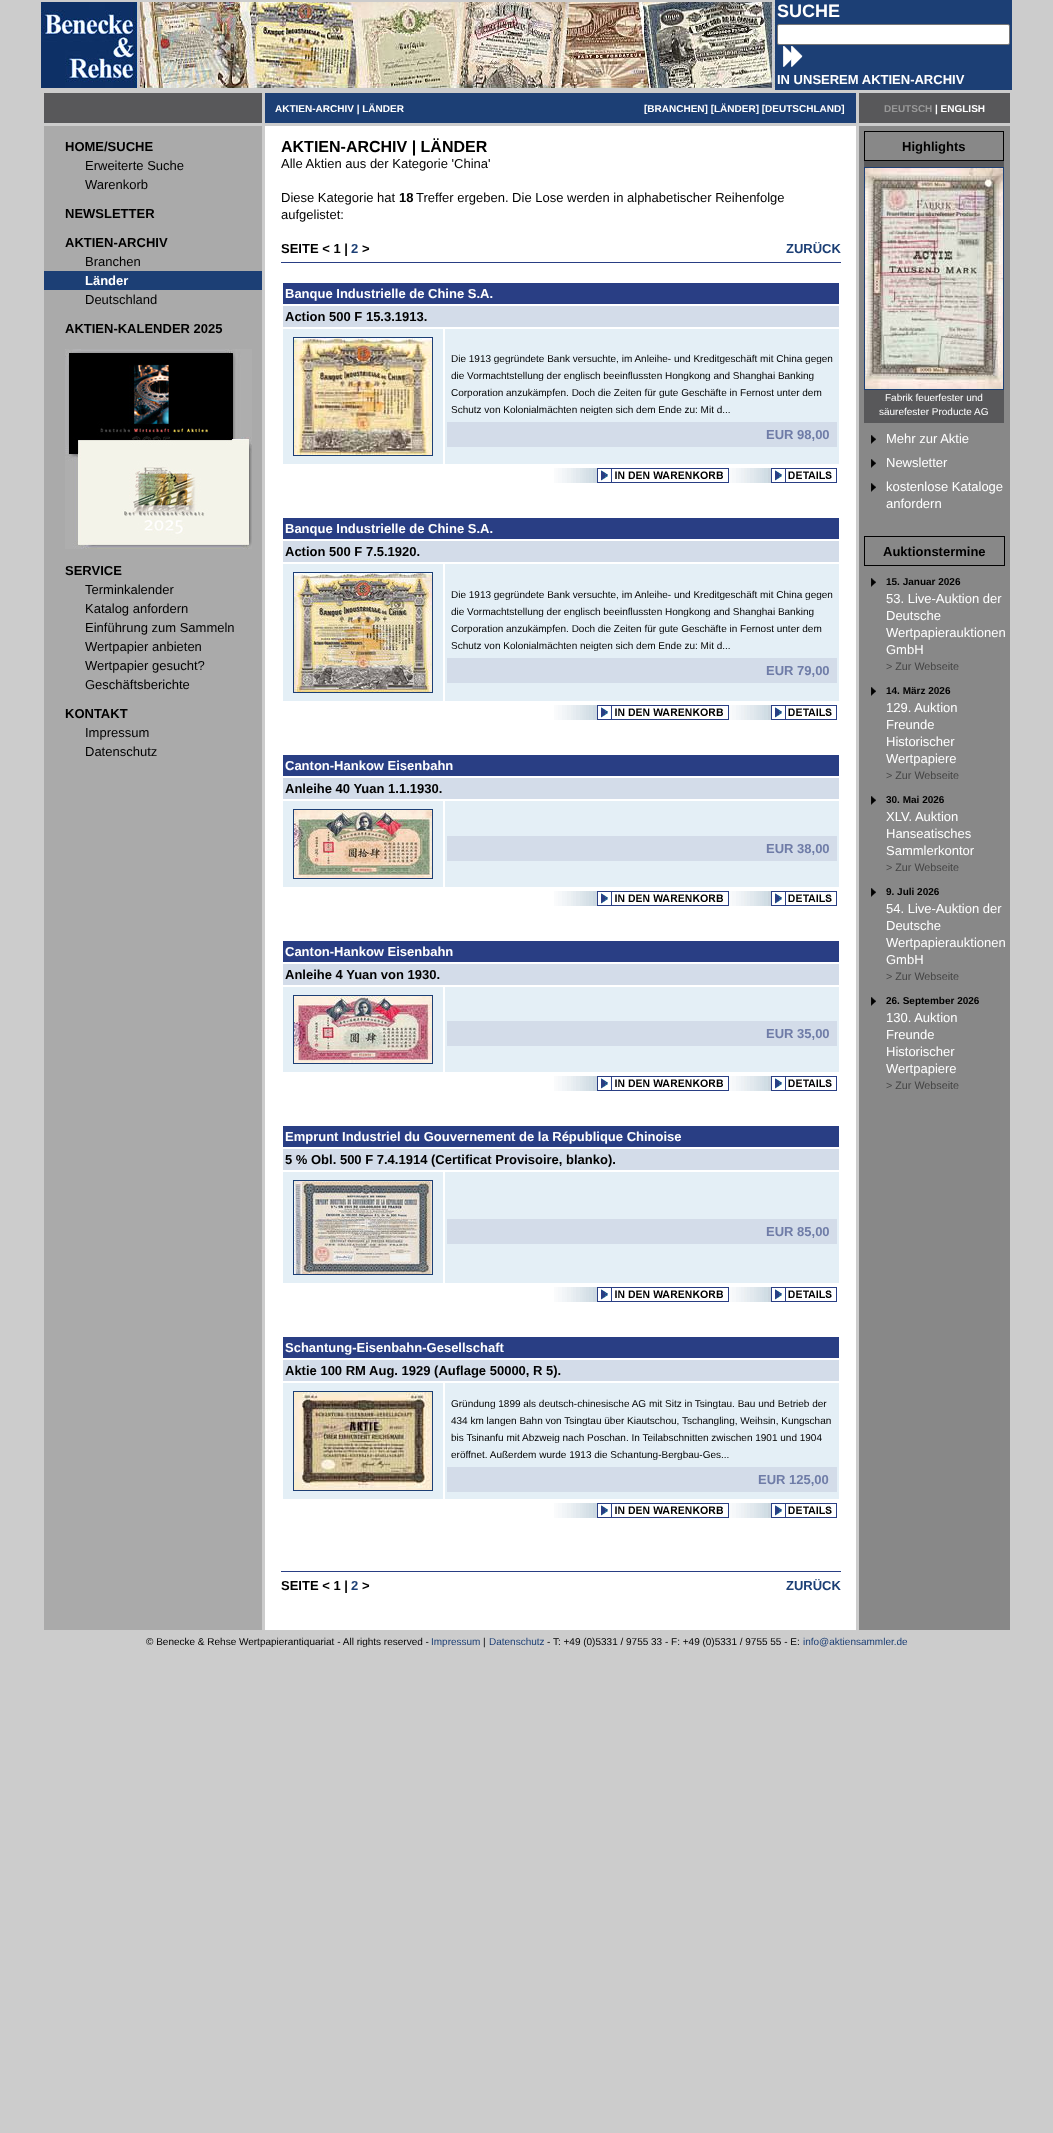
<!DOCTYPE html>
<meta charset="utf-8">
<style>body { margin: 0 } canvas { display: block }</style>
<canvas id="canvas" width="1053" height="2133"></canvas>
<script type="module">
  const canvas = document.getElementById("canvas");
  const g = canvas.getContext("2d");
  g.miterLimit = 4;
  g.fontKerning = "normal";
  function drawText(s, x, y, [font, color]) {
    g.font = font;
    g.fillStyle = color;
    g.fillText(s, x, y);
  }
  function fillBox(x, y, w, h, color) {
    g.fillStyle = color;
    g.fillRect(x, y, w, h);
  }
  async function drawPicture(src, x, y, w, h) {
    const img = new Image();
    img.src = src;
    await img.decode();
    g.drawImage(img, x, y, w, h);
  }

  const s1 = ["bold 18px Liberation Sans", "#FFFFFF"];
  const s2 = ["bold 13px Liberation Sans", "#FFFFFF"];
  const s3 = ["bold 10px Liberation Sans", "#FFFFFF"];
  const s4 = ["bold 10px Liberation Sans", "#999999"];
  const s5 = ["bold 13px Liberation Sans", "#000000"];
  const s6 = ["13px Liberation Sans", "#000000"];
  const s7 = ["bold 16px Liberation Sans", "#000000"];
  const s8 = ["bold 13px Liberation Sans", "#1C3F75"];
  const s9 = ["10px Liberation Sans", "#000000"];
  const s10 = ["bold 13px Liberation Sans", "#6F7CA7"];
  const s11 = ["10px Liberation Sans", "#FFFFFF"];
  const s12 = ["13px Liberation Sans", "#FFFFFF"];
  const s13 = ["bold 10px Liberation Sans", "#000000"];
  const s14 = ["10.75px Liberation Sans", "#444444"];
  const s15 = ["10px Liberation Sans", "#1C3F75"];

  fillBox(0, 0, 1053, 2133, "#CCCCCC");
  await drawPicture("pic1.png", 41, 2, 734, 86);
  fillBox(775, 0, 237, 90, "#1C3F75");
  drawText("SUCHE", 777, 17, s1);
  g.beginPath();
  g.roundRect(777.5, 24.5, 232, 20, 1.5);
  g.fill();
  g.strokeStyle = "#767676";
  g.stroke();
  await drawPicture("pic2.png", 783, 46, 20, 21);
  drawText("IN UNSEREM AKTIEN-ARCHIV", 777, 84, s2);
  fillBox(44, 93, 218, 30, "#58585A");
  fillBox(265, 93, 591, 30, "#1C3F75");
  drawText("AKTIEN-ARCHIV | LÄNDER", 275, 112, s3);
  drawText("[BRANCHEN] [LÄNDER] [DEUTSCHLAND]", 644, 112, s3);
  fillBox(859, 93, 151, 30, "#58585A");
  drawText("DEUTSCH", 884, 112, s4);
  drawText("| ENGLISH", 935, 112, s3);
  fillBox(44, 126, 218, 1504, "#AAAAAA");
  drawText("HOME/SUCHE", 65, 151, s5);
  drawText("Erweiterte Suche", 85, 170, s6);
  drawText("Warenkorb", 85, 189, s6);
  drawText("NEWSLETTER", 65, 218, s5);
  drawText("AKTIEN-ARCHIV", 65, 247, s5);
  drawText("Branchen", 85, 266, s6);
  fillBox(44, 271, 218, 19, "#1C3F75");
  drawText("Länder", 85, 285, s2);
  drawText("Deutschland", 85, 304, s6);
  drawText("AKTIEN-KALENDER 2025", 65, 333, s5);
  await drawPicture("pic3.png", 65, 349, 187, 200);
  drawText("SERVICE", 65, 575, s5);
  drawText("Terminkalender", 85, 594, s6);
  drawText("Katalog anfordern", 85, 613, s6);
  drawText("Einführung zum Sammeln", 85, 632, s6);
  drawText("Wertpapier anbieten", 85, 651, s6);
  drawText("Wertpapier gesucht?", 85, 670, s6);
  drawText("Geschäftsberichte", 85, 689, s6);
  drawText("KONTAKT", 65, 718, s5);
  drawText("Impressum", 85, 737, s6);
  drawText("Datenschutz", 85, 756, s6);
  fillBox(265, 126, 591, 1504, "#FFFFFF");
  drawText("AKTIEN-ARCHIV | LÄNDER", 281, 152, s7);
  drawText("Alle Aktien aus der Kategorie 'China'", 281, 168, s6);
  drawText("Diese Kategorie hat", 281, 202, s6);
  drawText("18", 399, 202, s5);
  drawText("Treffer ergeben. Die Lose werden in alphabetischer Reihenfolge", 416, 202, s6);
  drawText("aufgelistet:", 281, 219, s6);
  drawText("SEITE < 1 |", 281, 253, s5);
  drawText("2", 351, 253, s8);
  drawText(">", 362, 253, s5);
  drawText("ZURÜCK", 786, 253, s8);
  fillBox(281, 262, 560, 1, "#293E84");
  fillBox(283, 283, 556, 21, "#293E84");
  drawText("Banque Industrielle de Chine S.A.", 285, 298, s2);
  fillBox(283, 306, 556, 21, "#D3DCE9");
  drawText("Action 500 F 15.3.1913.", 285, 321, s5);
  fillBox(283, 329, 160, 135, "#E4EFF6");
  g.strokeStyle = "#1C3F75";
  g.strokeRect(293.5, 337.5, 139, 118);
  await drawPicture("pic4.png", 294, 338, 138, 117);
  fillBox(445, 329, 394, 135, "#E4EFF6");
  drawText("Die 1913 gegründete Bank versuchte, im Anleihe- und Kreditgeschäft mit China gegen", 451, 362, s9);
  drawText("die Vormachtstellung der englisch beeinflussten Hongkong and Shanghai Banking", 451, 379, s9);
  drawText("Corporation anzukämpfen. Doch die Zeiten für gute Geschäfte in Fernost unter dem", 451, 396, s9);
  drawText("Schutz von Kolonialmächten neigten sich dem Ende zu: Mit d...", 451, 413, s9);
  fillBox(447, 422, 390, 25, "#D3DCE9");
  drawText("EUR 98,00", 766, 439, s10);
  await drawPicture("pic5.png", 554, 468, 175, 15);
  await drawPicture("pic6.png", 729, 468, 108, 15);
  fillBox(283, 518, 556, 21, "#293E84");
  drawText("Banque Industrielle de Chine S.A.", 285, 533, s2);
  fillBox(283, 541, 556, 21, "#D3DCE9");
  drawText("Action 500 F 7.5.1920.", 285, 556, s5);
  fillBox(283, 564, 160, 137, "#E4EFF6");
  g.strokeRect(293.5, 572.5, 139, 120);
  await drawPicture("pic7.png", 294, 573, 138, 119);
  fillBox(445, 564, 394, 137, "#E4EFF6");
  drawText("Die 1913 gegründete Bank versuchte, im Anleihe- und Kreditgeschäft mit China gegen", 451, 598, s9);
  drawText("die Vormachtstellung der englisch beeinflussten Hongkong and Shanghai Banking", 451, 615, s9);
  drawText("Corporation anzukämpfen. Doch die Zeiten für gute Geschäfte in Fernost unter dem", 451, 632, s9);
  drawText("Schutz von Kolonialmächten neigten sich dem Ende zu: Mit d...", 451, 649, s9);
  fillBox(447, 658, 390, 25, "#D3DCE9");
  drawText("EUR 79,00", 766, 675, s10);
  await drawPicture("pic5.png", 554, 705, 175, 15);
  await drawPicture("pic6.png", 729, 705, 108, 15);
  fillBox(283, 755, 556, 21, "#293E84");
  drawText("Canton-Hankow Eisenbahn", 285, 770, s2);
  fillBox(283, 778, 556, 21, "#D3DCE9");
  drawText("Anleihe 40 Yuan 1.1.1930.", 285, 793, s5);
  fillBox(283, 801, 160, 86, "#E4EFF6");
  g.strokeRect(293.5, 809.5, 139, 69);
  await drawPicture("pic8.png", 294, 810, 138, 68);
  fillBox(445, 801, 394, 86, "#E4EFF6");
  fillBox(447, 836, 390, 25, "#D3DCE9");
  drawText("EUR 38,00", 766, 853, s10);
  await drawPicture("pic5.png", 554, 891, 175, 15);
  await drawPicture("pic6.png", 729, 891, 108, 15);
  fillBox(283, 941, 556, 21, "#293E84");
  drawText("Canton-Hankow Eisenbahn", 285, 956, s2);
  fillBox(283, 964, 556, 21, "#D3DCE9");
  drawText("Anleihe 4 Yuan von 1930.", 285, 979, s5);
  fillBox(283, 987, 160, 85, "#E4EFF6");
  g.strokeRect(293.5, 995.5, 139, 68);
  await drawPicture("pic9.png", 294, 996, 138, 67);
  fillBox(445, 987, 394, 85, "#E4EFF6");
  fillBox(447, 1021, 390, 25, "#D3DCE9");
  drawText("EUR 35,00", 766, 1038, s10);
  await drawPicture("pic5.png", 554, 1076, 175, 15);
  await drawPicture("pic6.png", 729, 1076, 108, 15);
  fillBox(283, 1126, 556, 21, "#293E84");
  drawText("Emprunt Industriel du Gouvernement de la République Chinoise", 285, 1141, s2);
  fillBox(283, 1149, 556, 21, "#D3DCE9");
  drawText("5 % Obl. 500 F 7.4.1914 (Certificat Provisoire, blanko).", 285, 1164, s5);
  fillBox(283, 1172, 160, 111, "#E4EFF6");
  g.strokeRect(293.5, 1180.5, 139, 94);
  await drawPicture("pic10.png", 294, 1181, 138, 93);
  fillBox(445, 1172, 394, 111, "#E4EFF6");
  fillBox(447, 1219, 390, 25, "#D3DCE9");
  drawText("EUR 85,00", 766, 1236, s10);
  await drawPicture("pic5.png", 554, 1287, 175, 15);
  await drawPicture("pic6.png", 729, 1287, 108, 15);
  fillBox(283, 1337, 556, 21, "#293E84");
  drawText("Schantung-Eisenbahn-Gesellschaft", 285, 1352, s2);
  fillBox(283, 1360, 556, 21, "#D3DCE9");
  drawText("Aktie 100 RM Aug. 1929 (Auflage 50000, R 5).", 285, 1375, s5);
  fillBox(283, 1383, 160, 116, "#E4EFF6");
  g.strokeRect(293.5, 1391.5, 139, 99);
  await drawPicture("pic11.png", 294, 1392, 138, 98);
  fillBox(445, 1383, 394, 116, "#E4EFF6");
  drawText("Gründung 1899 als deutsch-chinesische AG mit Sitz in Tsingtau. Bau und Betrieb der", 451, 1407, s9);
  drawText("434 km langen Bahn von Tsingtau über Kiautschou, Tschangling, Weihsin, Kungschan", 451, 1424, s9);
  drawText("bis Tsinanfu mit Abzweig nach Poschan. In Teilabschnitten zwischen 1901 und 1904", 451, 1441, s9);
  drawText("eröffnet. Außerdem wurde 1913 die Schantung-Bergbau-Ges...", 451, 1458, s9);
  fillBox(447, 1467, 390, 25, "#D3DCE9");
  drawText("EUR 125,00", 758, 1484, s10);
  await drawPicture("pic5.png", 554, 1503, 175, 15);
  await drawPicture("pic6.png", 729, 1503, 108, 15);
  fillBox(281, 1571, 560, 1, "#293E84");
  drawText("SEITE < 1 |", 281, 1590, s5);
  drawText("2", 351, 1590, s8);
  drawText(">", 362, 1590, s5);
  drawText("ZURÜCK", 786, 1590, s8);
  fillBox(859, 126, 151, 1504, "#888888");
  fillBox(864, 131, 140, 30, "#000000");
  fillBox(865, 132, 138, 28, "#888888");
  drawText("Highlights", 902, 151, s5);
  fillBox(864, 161, 140, 262, "#58585A");
  g.strokeRect(864.5, 167.5, 139, 222);
  await drawPicture("pic12.png", 865, 168, 138, 221);
  drawText("Fabrik feuerfester und", 885, 401, s11);
  drawText("säurefester Producte AG", 879, 415, s11);
  await drawPicture("pic13.png", 871, 435, 5, 9);
  drawText("Mehr zur Aktie", 886, 443, s12);
  await drawPicture("pic13.png", 871, 459, 5, 9);
  drawText("Newsletter", 886, 467, s12);
  await drawPicture("pic13.png", 871, 483, 5, 9);
  drawText("kostenlose Kataloge", 886, 491, s12);
  drawText("anfordern", 886, 508, s12);
  fillBox(864, 536, 141, 30, "#000000");
  fillBox(865, 537, 139, 28, "#888888");
  drawText("Auktionstermine", 883, 556, s5);
  await drawPicture("pic13.png", 871, 578, 5, 9);
  drawText("15. Januar 2026", 886, 585, s13);
  drawText("53. Live-Auktion der", 886, 603, s12);
  drawText("Deutsche", 886, 620, s12);
  drawText("Wertpapierauktionen", 886, 637, s12);
  drawText("GmbH", 886, 654, s12);
  drawText("> Zur Webseite", 886, 670, s14);
  await drawPicture("pic13.png", 871, 687, 5, 9);
  drawText("14. März 2026", 886, 694, s13);
  drawText("129. Auktion", 886, 712, s12);
  drawText("Freunde", 886, 729, s12);
  drawText("Historischer", 886, 746, s12);
  drawText("Wertpapiere", 886, 763, s12);
  drawText("> Zur Webseite", 886, 779, s14);
  await drawPicture("pic13.png", 871, 796, 5, 9);
  drawText("30. Mai 2026", 886, 803, s13);
  drawText("XLV. Auktion", 886, 821, s12);
  drawText("Hanseatisches", 886, 838, s12);
  drawText("Sammlerkontor", 886, 855, s12);
  drawText("> Zur Webseite", 886, 871, s14);
  await drawPicture("pic13.png", 871, 888, 5, 9);
  drawText("9. Juli 2026", 886, 895, s13);
  drawText("54. Live-Auktion der", 886, 913, s12);
  drawText("Deutsche", 886, 930, s12);
  drawText("Wertpapierauktionen", 886, 947, s12);
  drawText("GmbH", 886, 964, s12);
  drawText("> Zur Webseite", 886, 980, s14);
  await drawPicture("pic13.png", 871, 997, 5, 9);
  drawText("26. September 2026", 886, 1004, s13);
  drawText("130. Auktion", 886, 1022, s12);
  drawText("Freunde", 886, 1039, s12);
  drawText("Historischer", 886, 1056, s12);
  drawText("Wertpapiere", 886, 1073, s12);
  drawText("> Zur Webseite", 886, 1089, s14);
  drawText("© Benecke & Rehse Wertpapierantiquariat - All rights reserved -", 146, 1645, s9);
  drawText("Impressum", 431, 1645, s15);
  drawText("|", 483, 1645, s9);
  drawText("Datenschutz", 489, 1645, s15);
  drawText("- T: +49 (0)5331 / 9755 33 - F: +49 (0)5331 / 9755 55 - E:", 547, 1645, s9);
  drawText("info@aktiensammler.de", 803, 1645, s15);
</script>
